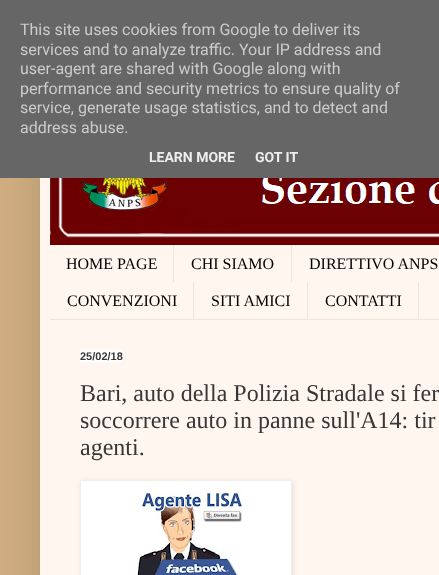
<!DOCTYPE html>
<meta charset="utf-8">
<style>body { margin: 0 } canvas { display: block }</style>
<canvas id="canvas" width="439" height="575"></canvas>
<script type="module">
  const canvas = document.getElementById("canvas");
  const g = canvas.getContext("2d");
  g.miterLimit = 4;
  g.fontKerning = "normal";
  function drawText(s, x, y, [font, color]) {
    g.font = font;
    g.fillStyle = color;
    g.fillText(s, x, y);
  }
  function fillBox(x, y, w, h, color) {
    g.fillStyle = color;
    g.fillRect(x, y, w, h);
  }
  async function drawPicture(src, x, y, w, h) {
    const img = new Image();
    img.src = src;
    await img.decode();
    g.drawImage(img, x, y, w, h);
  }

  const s1 = ["16px Roboto", "#CCCCCC"];
  const s2 = ["bold 14px Roboto", "#EEEEEE"];
  const s3 = ["16px Liberation Serif", "#000000"];
  const s4 = ["bold 11px Liberation Sans", "#373737"];
  const s5 = ["24px Liberation Serif", "#373737"];

  fillBox(0, 0, 439, 575, "#D0AE81");
  g.fillStyle = "rgba(0, 0, 0, 0.15)";
  g.filter = "blur(20px)";
  g.beginPath();
  g.rect(40, 30, 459, 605);
  g.fill();
  g.filter = "none";
  fillBox(0, 0, 439, 178, "#666666");
  drawText("This site uses cookies from Google to deliver its", 20, 35, s1);
  drawText("services and to analyze traffic. Your IP address and", 20, 55, s1);
  drawText("user-agent are shared with Google along with", 20, 74, s1);
  drawText("performance and security metrics to ensure quality of", 20, 94, s1);
  drawText("service, generate usage statistics, and to detect and", 20, 113, s1);
  drawText("address abuse.", 20, 133, s1);
  drawText("LEARN MORE", 149, 162, s2);
  drawText("GOT IT", 255, 162, s2);
  fillBox(40, 178, 399, 397, "#FFF6EF");
  await drawPicture("pic1.png", 50, 178, 389, 67);
  fillBox(50, 319, 389, 1, "#EEE5DD");
  fillBox(173, 245, 1, 37, "#EEE5DD");
  drawText("HOME PAGE", 66, 269, s3);
  fillBox(291, 245, 1, 37, "#EEE5DD");
  drawText("CHI SIAMO", 191, 269, s3);
  drawText("DIRETTIVO ANPS", 309, 269, s3);
  fillBox(193, 282, 1, 37, "#EEE5DD");
  drawText("CONVENZIONI", 67, 306, s3);
  fillBox(307, 282, 1, 37, "#EEE5DD");
  drawText("SITI AMICI", 211, 306, s3);
  fillBox(418, 282, 1, 37, "#EEE5DD");
  drawText("CONTATTI", 325, 306, s3);
  fillBox(80, 350, 43, 12, "#FFFFFF");
  drawText("25/02/18", 80, 360, s4);
  drawText("Bari, auto della Polizia Stradale si fer", 80, 401, s5);
  drawText("soccorrere auto in panne sull'A14: tir", 80, 428, s5);
  drawText("agenti.", 80, 455, s5);
  g.fillStyle = "rgba(0, 0, 0, 0.1)";
  g.filter = "blur(2.5px)";
  g.beginPath();
  g.rect(81, 481, 212, 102);
  g.fill();
  g.filter = "none";
  g.fillStyle = "#FFFFFF";
  g.beginPath();
  g.rect(80.5, 480.5, 211, 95);
  g.fill();
  g.strokeStyle = "#EEEEEE";
  g.stroke();
  await drawPicture("pic2.png", 137, 490, 106, 85);
</script>
